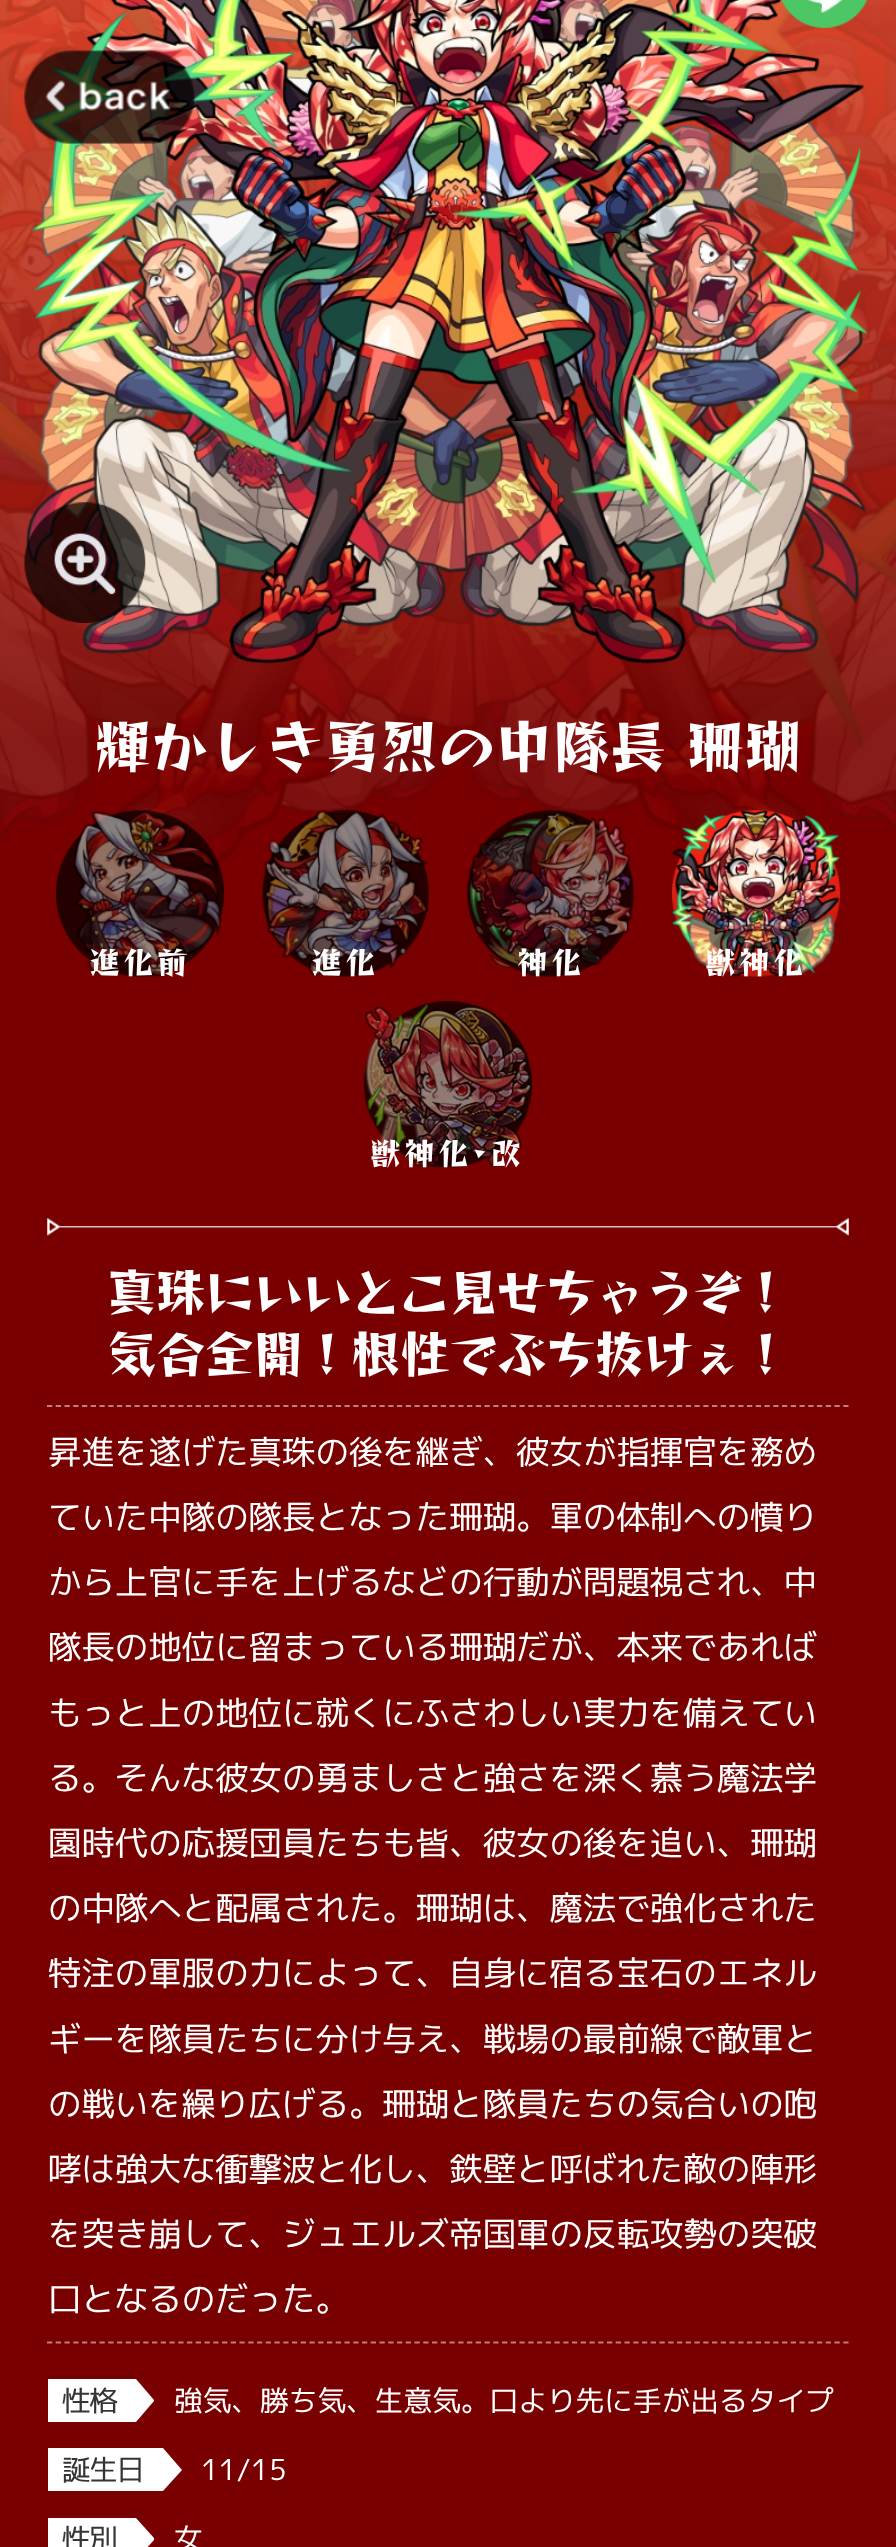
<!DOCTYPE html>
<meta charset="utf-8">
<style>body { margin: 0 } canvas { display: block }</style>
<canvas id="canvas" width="896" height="2547"></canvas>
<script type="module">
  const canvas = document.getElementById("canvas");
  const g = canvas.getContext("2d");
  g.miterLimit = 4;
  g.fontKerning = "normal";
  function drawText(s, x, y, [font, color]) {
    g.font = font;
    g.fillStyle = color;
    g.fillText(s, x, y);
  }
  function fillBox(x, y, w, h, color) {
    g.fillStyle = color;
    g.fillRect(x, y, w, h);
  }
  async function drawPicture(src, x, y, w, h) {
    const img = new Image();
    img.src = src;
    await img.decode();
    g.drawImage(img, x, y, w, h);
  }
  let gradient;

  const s1 = ["57.3px Reggae One", "#FFFFFF"];
  const s2 = ["31px Reggae One", "#FFFFFF"];
  const s3 = ["50.25px Reggae One", "#FFFFFF"];
  const s4 = ["33.45px 'M PLUS 1p'", "#FFFFFF"];
  const s5 = ["28.7px 'M PLUS 1p'", "#353535"];
  const s6 = ["28.7px 'M PLUS 1p'", "#FFFFFF"];

  fillBox(0, 0, 896, 2547, "#790000");
  gradient = g.createLinearGradient(448, -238, 448, 756);
  gradient.addColorStop(0, "#FA5B36");
  gradient.addColorStop(1, "#790000");
  g.fillStyle = gradient;
  g.fillRect(0, 0, 896, 737);
  await drawPicture("pic3.png", 0, 0, 896, 873);
  await drawPicture("pic4.png", 26, 0, 842, 664);
  await drawPicture("pic1.png", 780, 0, 88, 28);
  await drawPicture("pic2.png", 23, 50, 172, 94);
  await drawPicture("pic5.png", 24, 502, 122, 121);
  drawText("輝かしき勇烈の中隊長 珊瑚", 94, 768, s1);
  await drawPicture("pic6.png", 56, 810, 168, 167);
  await drawPicture("pic7.png", 73, 810, 149, 167);
  g.letterSpacing = "3px";
  drawText("進化前", 89, 974, s2);
  await drawPicture("pic8.png", 262, 810, 167, 167);
  await drawPicture("pic9.png", 263, 810, 166, 166);
  drawText("進化", 311, 974, s2);
  await drawPicture("pic10.png", 467, 810, 167, 167);
  await drawPicture("pic11.png", 469, 810, 164, 167);
  drawText("神化", 517, 974, s2);
  await drawPicture("pic12.png", 672, 810, 168, 167);
  await drawPicture("pic13.png", 672, 810, 168, 167);
  drawText("獣神化", 705, 974, s2);
  await drawPicture("pic14.png", 364, 1001, 168, 167);
  await drawPicture("pic15.png", 365, 1004, 167, 164);
  drawText("獣神化･改", 370, 1165, s2);
  await drawPicture("pic16.png", 47, 1218, 802, 18);
  g.letterSpacing = "-1.5px";
  drawText("真珠にいいとこ見せちゃうぞ！", 107, 1311, s3);
  drawText("気合全開！根性でぶち抜けぇ！", 107, 1373, s3);
  g.beginPath();
  g.moveTo(47, 1406);
  g.lineTo(849, 1406);
  g.strokeStyle = "#BC8080";
  g.lineWidth = 1.8;
  g.setLineDash([5.25, 3.5]);
  g.stroke();
  g.beginPath();
  g.moveTo(47, 2342.5);
  g.lineTo(849, 2342.5);
  g.stroke();
  g.letterSpacing = "0px";
  drawText("昇進を遂げた真珠の後を継ぎ、彼女が指揮官を務め", 48, 1464, s4);
  drawText("ていた中隊の隊長となった珊瑚。軍の体制への憤り", 48, 1529, s4);
  drawText("から上官に手を上げるなどの行動が問題視され、中", 48, 1594, s4);
  drawText("隊長の地位に留まっている珊瑚だが、本来であれば", 48, 1659, s4);
  drawText("もっと上の地位に就くにふさわしい実力を備えてい", 48, 1725, s4);
  drawText("る。そんな彼女の勇ましさと強さを深く慕う魔法学", 48, 1790, s4);
  drawText("園時代の応援団員たちも皆、彼女の後を追い、珊瑚", 48, 1855, s4);
  drawText("の中隊へと配属された。珊瑚は、魔法で強化された", 48, 1920, s4);
  drawText("特注の軍服の力によって、自身に宿る宝石のエネル", 48, 1985, s4);
  drawText("ギーを隊員たちに分け与え、戦場の最前線で敵軍と", 48, 2051, s4);
  drawText("の戦いを繰り広げる。珊瑚と隊員たちの気合いの咆", 48, 2116, s4);
  drawText("哮は強大な衝撃波と化し、鉄壁と呼ばれた敵の陣形", 48, 2181, s4);
  drawText("を突き崩して、ジュエルズ帝国軍の反転攻勢の突破", 48, 2246, s4);
  drawText("口となるのだった。", 48, 2311, s4);
  g.beginPath();
  g.moveTo(48, 2379);
  g.lineTo(136, 2379);
  g.lineTo(154, 2400);
  g.lineTo(154, 2401);
  g.lineTo(136, 2422);
  g.lineTo(48, 2422);
  g.closePath();
  g.fill();
  g.letterSpacing = "-1.5px";
  drawText("性格", 62, 2411, s5);
  g.letterSpacing = "0px";
  drawText("強気、勝ち気、生意気。口より先に手が出るタイプ", 174, 2411, s6);
  g.beginPath();
  g.moveTo(48, 2448);
  g.lineTo(48, 2491);
  g.lineTo(163, 2491);
  g.lineTo(182, 2470);
  g.lineTo(163, 2448);
  g.closePath();
  g.fill();
  g.letterSpacing = "-1.5px";
  drawText("誕生日", 62, 2480, s5);
  g.letterSpacing = "0px";
  drawText("11/15", 201, 2480, s6);
  g.beginPath();
  g.moveTo(48, 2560);
  g.lineTo(48, 2518);
  g.lineTo(136, 2518);
  g.lineTo(154, 2538);
  g.lineTo(154, 2540);
  g.lineTo(136, 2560);
  g.closePath();
  g.fill();
  g.letterSpacing = "-1.5px";
  drawText("性別", 62, 2549, s5);
  g.letterSpacing = "0px";
  drawText("女", 174, 2549, s6);
</script>
